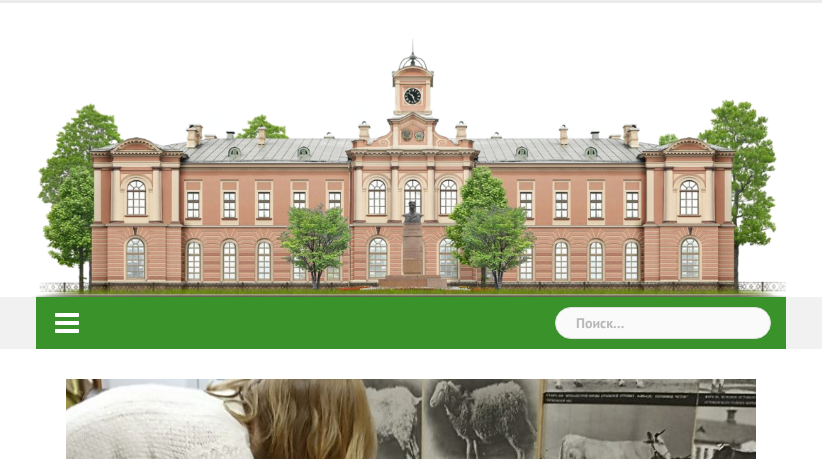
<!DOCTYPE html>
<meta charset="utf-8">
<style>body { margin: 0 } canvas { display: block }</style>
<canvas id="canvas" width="822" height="459"></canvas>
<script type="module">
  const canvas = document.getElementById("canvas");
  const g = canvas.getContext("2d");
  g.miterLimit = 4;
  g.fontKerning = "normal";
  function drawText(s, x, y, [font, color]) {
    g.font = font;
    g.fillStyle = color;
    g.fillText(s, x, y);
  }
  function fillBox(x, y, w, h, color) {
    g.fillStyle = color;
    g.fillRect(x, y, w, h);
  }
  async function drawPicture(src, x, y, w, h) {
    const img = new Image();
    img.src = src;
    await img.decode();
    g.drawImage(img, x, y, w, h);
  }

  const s1 = ["bold 14px PT Sans", "#B9B9B9"];

  fillBox(0, 0, 822, 459, "#FFFFFF");
  fillBox(0, 0, 822, 3, "#EBEBEB");
  await drawPicture("pic1.png", 36, 38, 750, 259);
  fillBox(0, 297, 822, 52, "#F1F1F1");
  fillBox(36, 297, 750, 52, "#3A932A");
  await drawPicture("pic2.png", 55, 313, 24, 20);
  g.fillStyle = "#FAFAFA";
  g.beginPath();
  g.roundRect(555.5, 307.5, 215, 31, 15.5);
  g.fill();
  g.strokeStyle = "#DFDFDF";
  g.stroke();
  drawText("Поиск…", 576, 328, s1);
  await drawPicture("pic3.png", 66, 379, 690, 80);
</script>
